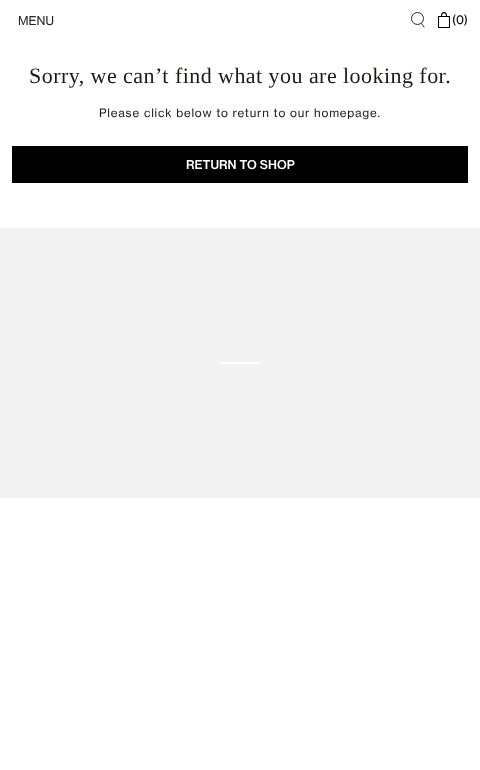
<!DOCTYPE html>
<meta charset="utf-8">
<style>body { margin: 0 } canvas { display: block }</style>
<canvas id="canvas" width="480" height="770"></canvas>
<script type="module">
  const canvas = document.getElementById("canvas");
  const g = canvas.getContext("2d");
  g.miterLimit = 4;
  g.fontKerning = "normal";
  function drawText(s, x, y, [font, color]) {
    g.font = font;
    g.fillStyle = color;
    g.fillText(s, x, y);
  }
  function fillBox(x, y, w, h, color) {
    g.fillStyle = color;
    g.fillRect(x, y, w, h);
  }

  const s1 = ["12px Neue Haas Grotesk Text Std", "#282828"];
  const s2 = ["12px Neue Haas Grotesk Text Std", "#000000"];
  const s3 = ["22px Liberation Serif", "#1A1B18"];
  const s4 = ["11.6px Neue Haas Grotesk Text Std", "#212326"];
  const s5 = ["500 12px Neue Haas Grotesk Text Std", "#FFFFFF"];

  fillBox(0, 0, 480, 770, "#FFFFFF");
  drawText("MENU", 18, 25, s1);
  g.beginPath();
  g.arc(417.5, 18.5, 6, 0, Math.PI * 2);
  g.strokeStyle = "#282828";
  g.stroke();
  g.beginPath();
  g.moveTo(421.5, 23.5);
  g.lineTo(424, 27);
  g.lineCap = "round";
  g.stroke();
  g.beginPath();
  g.moveTo(441.5, 16);
  g.bezierCurveTo(441.5, 11.5, 446.5, 11.5, 446.5, 16);
  g.strokeStyle = "#000000";
  g.lineWidth = 1.1;
  g.lineJoin = "round";
  g.stroke();
  g.lineWidth = 1;
  g.lineJoin = "miter";
  g.strokeRect(438.5, 16.5, 11, 11);
  drawText("(0)", 452, 24, s2);
  g.letterSpacing = "0.45px";
  drawText("Sorry, we can’t find what you are looking for.", 29, 83, s3);
  g.letterSpacing = "0.8px";
  drawText("Please click below to return to our homepage.", 99, 117, s4);
  fillBox(12, 146, 456, 37, "#000000");
  g.letterSpacing = "0px";
  drawText("RETURN TO SHOP", 186, 169, s5);
  fillBox(0, 228, 480, 270, "#F3F3F3");
  fillBox(220, 362, 40, 2, "#FFFFFF");
</script>
